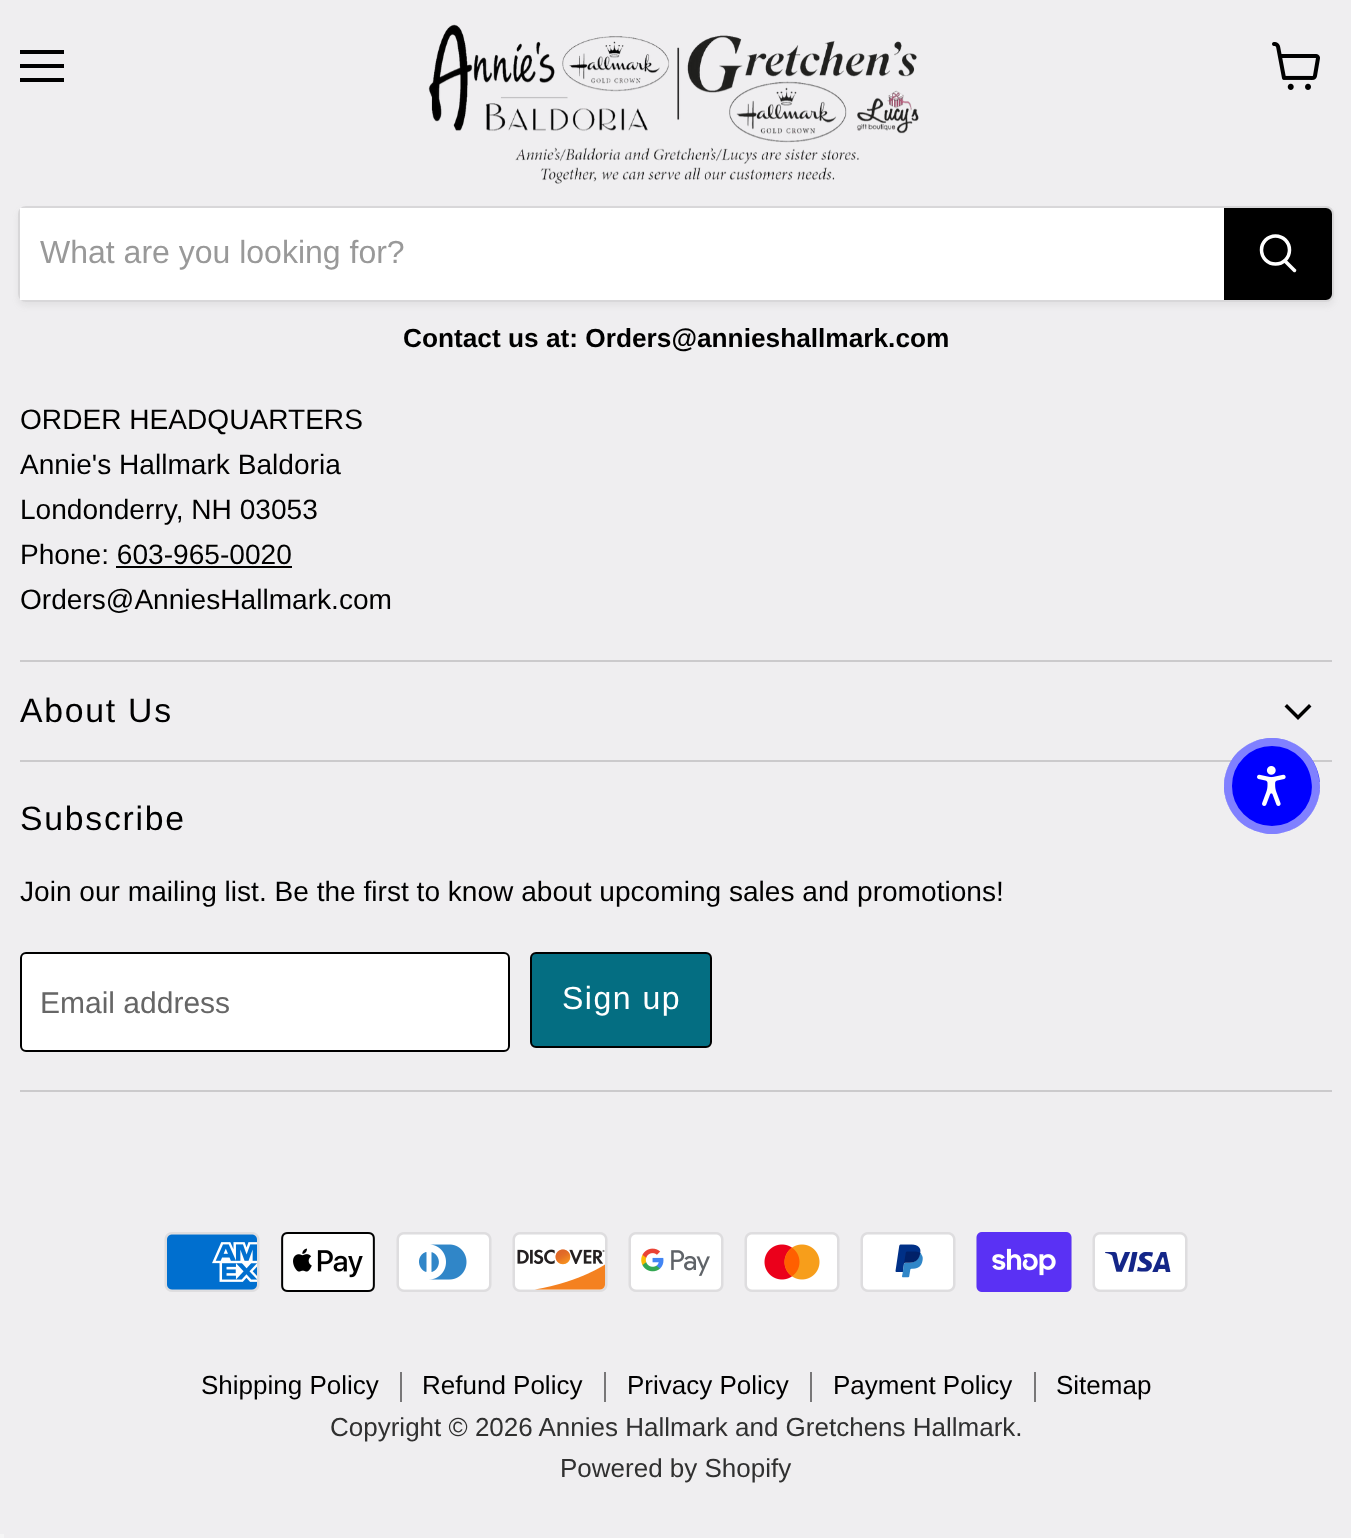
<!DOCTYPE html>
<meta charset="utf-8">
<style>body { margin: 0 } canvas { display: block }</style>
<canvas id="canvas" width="1351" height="1538"></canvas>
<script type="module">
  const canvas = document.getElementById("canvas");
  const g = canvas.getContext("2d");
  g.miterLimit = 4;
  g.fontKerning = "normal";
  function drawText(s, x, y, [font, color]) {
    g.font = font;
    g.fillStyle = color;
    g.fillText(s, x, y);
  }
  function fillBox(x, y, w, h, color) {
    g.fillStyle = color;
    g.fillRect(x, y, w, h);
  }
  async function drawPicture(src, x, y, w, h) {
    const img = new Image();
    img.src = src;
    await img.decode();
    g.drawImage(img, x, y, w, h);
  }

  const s1 = ["32px Liberation Sans", "#999999"];
  const s2 = ["bold 26.25px Liberation Sans", "#000000"];
  const s3 = ["28.1px Liberation Sans", "#000000"];
  const s4 = ["33.75px Liberation Sans", "#000000"];
  const s5 = ["30px Liberation Sans", "#666666"];
  const s6 = ["32px Liberation Sans", "#FFFFFF"];
  const s7 = ["26px Liberation Sans", "#000000"];
  const s8 = ["26px Liberation Sans", "#303030"];

  fillBox(0, 0, 1351, 1538, "#EFEEF0");
  fillBox(20, 50, 44, 4, "#000000");
  fillBox(20, 64, 44, 4, "#000000");
  fillBox(20, 78, 44, 4, "#000000");
  await drawPicture("pic1.png", 1272, 42, 48, 48);
  await drawPicture("pic2.png", 428, 24, 491, 160);
  g.save();
  g.beginPath();
  g.moveTo(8, 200);
  g.lineTo(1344, 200);
  g.lineTo(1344, 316);
  g.lineTo(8, 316);
  g.closePath();
  g.moveTo(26, 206);
  g.lineTo(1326, 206);
  g.bezierCurveTo(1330.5, 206, 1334, 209.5, 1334, 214);
  g.lineTo(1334, 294);
  g.bezierCurveTo(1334, 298.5, 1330.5, 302, 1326, 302);
  g.lineTo(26, 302);
  g.bezierCurveTo(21.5, 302, 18, 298.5, 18, 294);
  g.lineTo(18, 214);
  g.bezierCurveTo(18, 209.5, 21.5, 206, 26, 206);
  g.closePath();
  g.clip("evenodd");
  g.fillStyle = "rgba(123, 123, 124, 0.11)";
  g.filter = "blur(3px)";
  g.beginPath();
  g.roundRect(18, 210, 1316, 96, 8);
  g.fill();
  g.filter = "none";
  g.restore();
  g.beginPath();
  g.roundRect(19, 207, 1314, 94, 7);
  g.strokeStyle = "rgba(123, 123, 124, 0.2)";
  g.lineWidth = 2;
  g.stroke();
  fillBox(20, 208, 1204, 92, "#FFFFFF");
  drawText("What are you looking for?", 40, 263, s1);
  g.fillStyle = "#000000";
  g.beginPath();
  g.roundRect(1225, 209, 106, 90, [0, 5, 5, 0]);
  g.fill();
  g.strokeStyle = "#000000";
  g.stroke();
  g.beginPath();
  g.moveTo(1294.5, 270.5);
  g.lineTo(1285, 261);
  g.strokeStyle = "#FFFFFF";
  g.lineWidth = 3.5;
  g.lineCap = "round";
  g.stroke();
  g.beginPath();
  g.arc(1275.5, 250, 14, 0, Math.PI * 2);
  g.stroke();
  drawText("Contact us at: Orders@annieshallmark.com", 403, 347, s2);
  fillBox(20, 660, 1312, 2, "#CBCACC");
  drawText("ORDER HEADQUARTERS", 20, 429, s3);
  drawText("Annie's Hallmark Baldoria", 20, 474, s3);
  drawText("Londonderry, NH 03053", 20, 519, s3);
  drawText("Phone: 603-965-0020", 20, 564, s3);
  fillBox(116, 566, 176, 2, "#000000");
  drawText("Orders@AnniesHallmark.com", 20, 609, s3);
  fillBox(20, 760, 1312, 2, "#CBCACC");
  g.letterSpacing = "1.75px";
  drawText("About Us", 20, 722, s4);
  g.beginPath();
  g.moveTo(1298, 717.5);
  g.lineTo(1309, 706.5);
  g.moveTo(1298, 717.5);
  g.lineTo(1287, 706.5);
  g.strokeStyle = "#000000";
  g.lineCap = "square";
  g.stroke();
  fillBox(20, 1090, 1312, 2, "#CBCACC");
  drawText("Subscribe", 20, 830, s4);
  g.letterSpacing = "0px";
  drawText("Join our mailing list. Be the first to know about upcoming sales and promotions!", 20, 901, s3);
  g.fillStyle = "#FFFFFF";
  g.beginPath();
  g.roundRect(21, 953, 488, 98, 5);
  g.fill();
  g.lineWidth = 2;
  g.stroke();
  drawText("Email address", 40, 1013, s5);
  g.fillStyle = "#046E82";
  g.beginPath();
  g.roundRect(531, 953, 180, 94, 5);
  g.fill();
  g.stroke();
  g.letterSpacing = "1.5px";
  drawText("Sign up", 562, 1009, s6);
  await drawPicture("pic3.png", 164, 1232, 96, 60);
  await drawPicture("pic4.png", 281, 1232, 94, 60);
  await drawPicture("pic5.png", 396, 1232, 96, 60);
  await drawPicture("pic6.png", 512, 1232, 96, 60);
  await drawPicture("pic7.png", 628, 1232, 96, 60);
  await drawPicture("pic8.png", 744, 1232, 96, 60);
  await drawPicture("pic9.png", 860, 1232, 96, 60);
  await drawPicture("pic10.png", 976, 1232, 96, 60);
  await drawPicture("pic11.png", 1092, 1232, 96, 60);
  fillBox(400, 1372, 2, 30, "#787778");
  g.letterSpacing = "0px";
  drawText("Shipping Policy", 201, 1394, s7);
  fillBox(604, 1372, 2, 30, "#787778");
  drawText("Refund Policy", 422, 1394, s7);
  fillBox(810, 1372, 2, 30, "#787778");
  drawText("Privacy Policy", 627, 1394, s7);
  fillBox(1034, 1372, 2, 30, "#787778");
  drawText("Payment Policy", 833, 1394, s7);
  drawText("Sitemap", 1056, 1394, s7);
  drawText("Copyright © 2026 Annies Hallmark and Gretchens Hallmark.", 330, 1436, s8);
  drawText("Powered by Shopify", 560, 1477, s8);
  g.fillStyle = "#0000FF";
  g.beginPath();
  g.arc(1272, 786, 48, 0, Math.PI * 2);
  g.fill();
  g.beginPath();
  g.arc(1272, 786, 44, 0, Math.PI * 2);
  g.strokeStyle = "rgba(255, 255, 255, 0.5)";
  g.lineWidth = 8;
  g.stroke();
  await drawPicture("pic12.png", 1257, 766, 29, 40);
  fillBox(0, 1534, 4, 4, "#F5F5F5");
</script>
